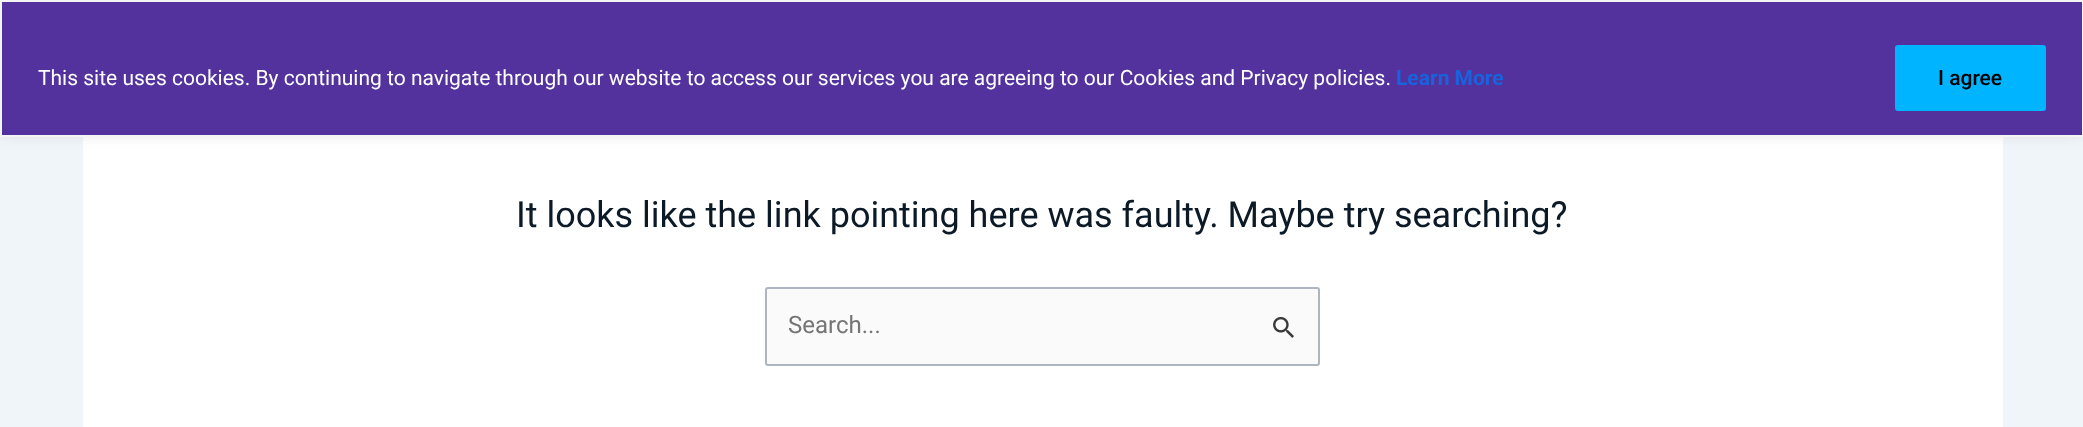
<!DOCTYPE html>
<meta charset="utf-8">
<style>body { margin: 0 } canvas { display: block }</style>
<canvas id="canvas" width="2083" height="427"></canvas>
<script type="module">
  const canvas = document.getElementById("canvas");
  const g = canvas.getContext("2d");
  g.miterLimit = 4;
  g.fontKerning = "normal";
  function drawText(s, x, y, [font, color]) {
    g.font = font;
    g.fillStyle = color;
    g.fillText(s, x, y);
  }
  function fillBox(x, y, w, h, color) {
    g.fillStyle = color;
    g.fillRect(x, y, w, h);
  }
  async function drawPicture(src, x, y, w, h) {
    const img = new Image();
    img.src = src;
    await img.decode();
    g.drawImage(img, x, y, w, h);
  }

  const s1 = ["21px Roboto", "#FFFFFF"];
  const s2 = ["bold 21px Roboto", "#1863DC"];
  const s3 = ["500 21px Roboto", "#000000"];
  const s4 = ["36px Roboto", "#0C1926"];
  const s5 = ["24px Roboto", "#757575"];

  fillBox(0, 0, 2083, 427, "#F0F5FA");
  fillBox(83, 137, 1920, 290, "#FFFFFF");
  g.fillStyle = "rgba(172, 171, 171, 0.3)";
  g.filter = "blur(7.5px)";
  g.beginPath();
  g.rect(0, -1, 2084, 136);
  g.fill();
  g.filter = "none";
  g.fillStyle = "#53329D";
  g.beginPath();
  g.rect(1, 1, 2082, 135);
  g.fill();
  g.strokeStyle = "#F4F4F4";
  g.lineWidth = 2;
  g.stroke();
  drawText("This site uses cookies. By continuing to navigate through our website to access our services you are agreeing to our Cookies and Privacy policies.", 38, 85, s1);
  drawText("Learn More", 1396, 85, s2);
  g.fillStyle = "#00B4FF";
  g.beginPath();
  g.roundRect(1896.5, 46.5, 148, 63, 1.5);
  g.fill();
  g.strokeStyle = "#00B4FF";
  g.lineWidth = 3;
  g.stroke();
  drawText("I agree", 1938, 85, s3);
  drawText("It looks like the link pointing here was faulty. Maybe try searching?", 516, 227, s4);
  g.fillStyle = "#FAFAFA";
  g.beginPath();
  g.roundRect(766, 288, 553, 77, 2);
  g.fill();
  g.strokeStyle = "#ADB6BE";
  g.lineWidth = 2;
  g.stroke();
  drawText("Search...", 788, 333, s5);
  await drawPicture("pic1.png", 1273, 317, 21, 21);
</script>
